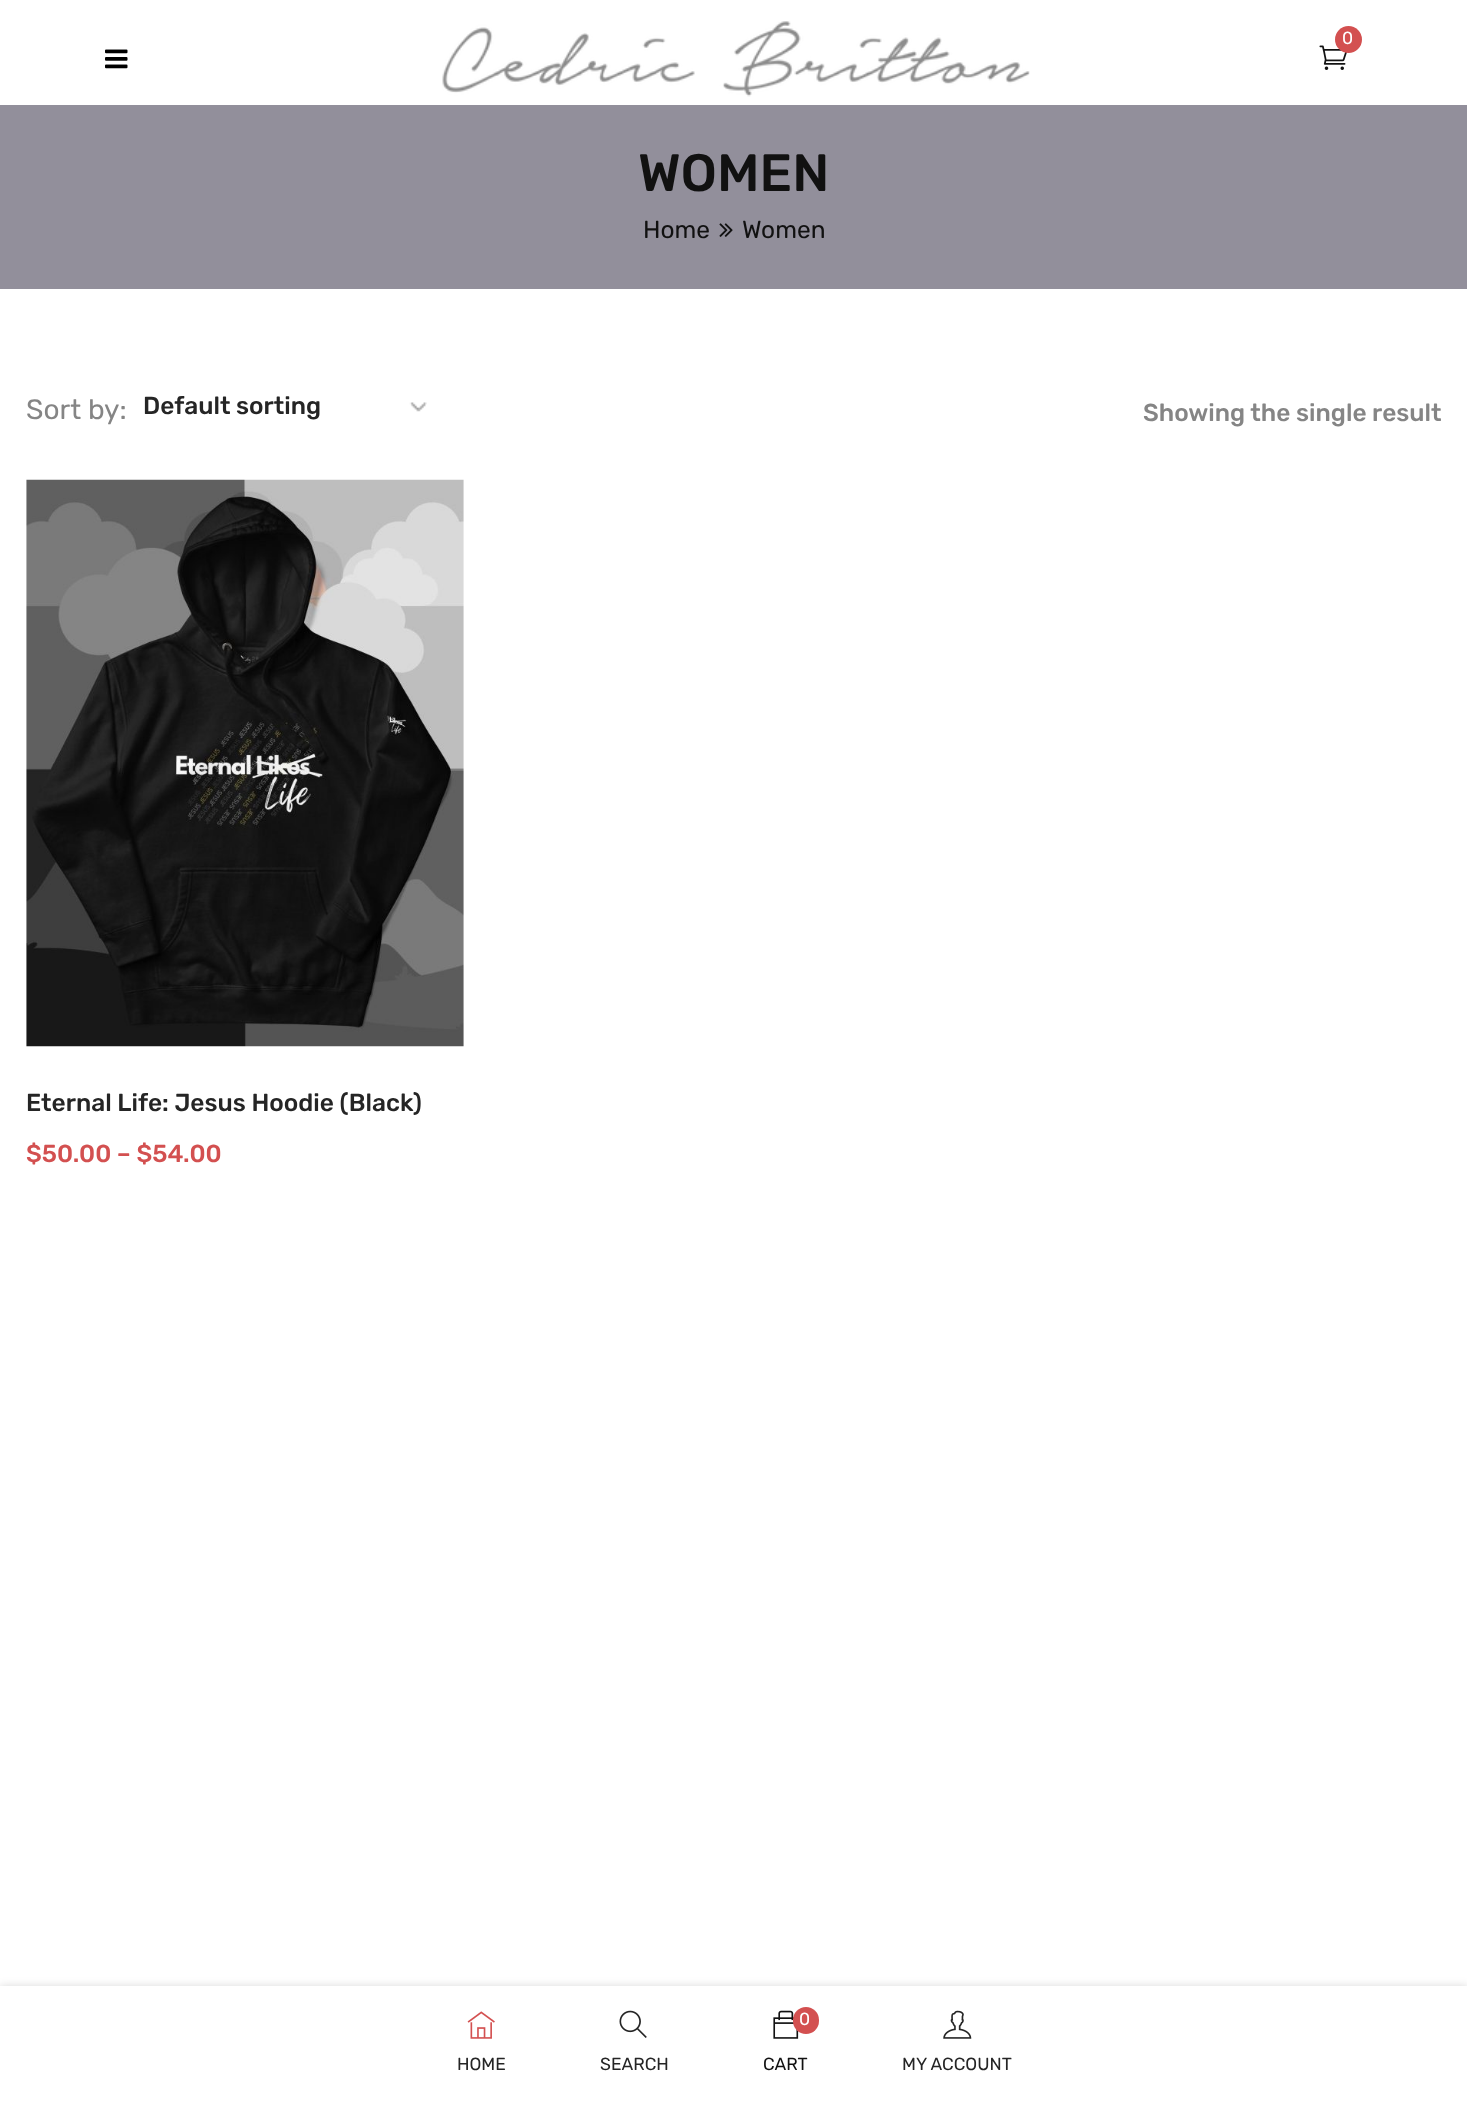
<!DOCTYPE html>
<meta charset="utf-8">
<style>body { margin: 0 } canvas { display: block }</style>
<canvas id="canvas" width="1467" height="2103"></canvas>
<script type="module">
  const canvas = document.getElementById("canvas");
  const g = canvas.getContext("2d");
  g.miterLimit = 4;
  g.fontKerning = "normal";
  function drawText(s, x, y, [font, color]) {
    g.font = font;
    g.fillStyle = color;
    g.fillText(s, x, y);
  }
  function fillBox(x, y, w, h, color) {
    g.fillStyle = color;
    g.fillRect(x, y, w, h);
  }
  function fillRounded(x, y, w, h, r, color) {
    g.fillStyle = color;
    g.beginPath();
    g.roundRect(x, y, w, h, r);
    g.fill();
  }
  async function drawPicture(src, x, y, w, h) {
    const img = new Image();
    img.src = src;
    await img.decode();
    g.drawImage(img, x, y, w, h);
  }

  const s1 = ["17.5px Rubik", "#FFFFFF"];
  const s2 = ["500 52.5px Rubik", "#111111"];
  const s3 = ["24.5px Rubik", "#111111"];
  const s4 = ["28px Rubik", "#858585"];
  const s5 = ["500 24.5px Rubik", "#252525"];
  const s6 = ["500 24.5px Rubik", "#858585"];
  const s7 = ["500 24.5px Rubik", "#D35050"];
  const s8 = ["17.5px Rubik", "#252525"];
  const s9 = ["17.5px Rubik", "#111111"];

  fillBox(0, 0, 1467, 2103, "#FFFFFF");
  await drawPicture("pic1.png", 442, 21, 588, 76);
  await drawPicture("pic2.png", 1319, 45, 28, 25);
  g.fillStyle = "#D35050";
  g.beginPath();
  g.arc(1348.5, 39.5, 13.5, 0, Math.PI * 2);
  g.fill();
  drawText("0", 1342, 44, s1);
  await drawPicture("pic3.png", 105, 49, 23, 20);
  fillBox(0, 105, 1467, 184, "#928F9B");
  drawText("WOMEN", 638, 191, s2);
  drawText("Home", 643, 238, s3);
  await drawPicture("pic4.png", 719, 223, 14, 14);
  drawText("Women", 742, 238, s3);
  drawText("Sort by:", 26, 419, s4);
  await drawPicture("pic5.png", 409, 402, 18, 10);
  drawText("Default sorting", 143, 414, s5);
  drawText("Showing the single result", 1143, 421, s6);
  await drawPicture("pic6.png", 26, 479, 438, 568);
  drawText("Eternal Life: Jesus Hoodie (Black)", 26, 1111, s5);
  drawText("$50.00 – $54.00", 26, 1162, s7);
  g.save();
  g.beginPath();
  g.moveTo(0, 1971);
  g.lineTo(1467, 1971);
  g.lineTo(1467, 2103);
  g.lineTo(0, 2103);
  g.closePath();
  g.moveTo(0, 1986);
  g.lineTo(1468, 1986);
  g.lineTo(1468, 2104);
  g.lineTo(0, 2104);
  g.closePath();
  g.clip("evenodd");
  g.fillStyle = "rgba(0, 0, 0, 0.15)";
  g.filter = "blur(4.5px)";
  g.beginPath();
  g.rect(0, 1986, 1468, 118);
  g.fill();
  g.filter = "none";
  g.restore();
  fillBox(0, 1986, 1467, 1, "rgba(255, 255, 255, 0.9)");
  await drawPicture("pic7.png", 467, 2011, 28, 28);
  drawText("HOME", 457, 2070, s8);
  await drawPicture("pic8.png", 619, 2010, 28, 28);
  drawText("SEARCH", 600, 2070, s8);
  await drawPicture("pic9.png", 773, 2010, 26, 29);
  fillRounded(793, 2007, 26, 27, 13, "#D35050");
  drawText("0", 799, 2025, s1);
  drawText("CART", 763, 2070, s9);
  await drawPicture("pic10.png", 943, 2010, 29, 29);
  drawText("MY ACCOUNT", 902, 2070, s8);
</script>
